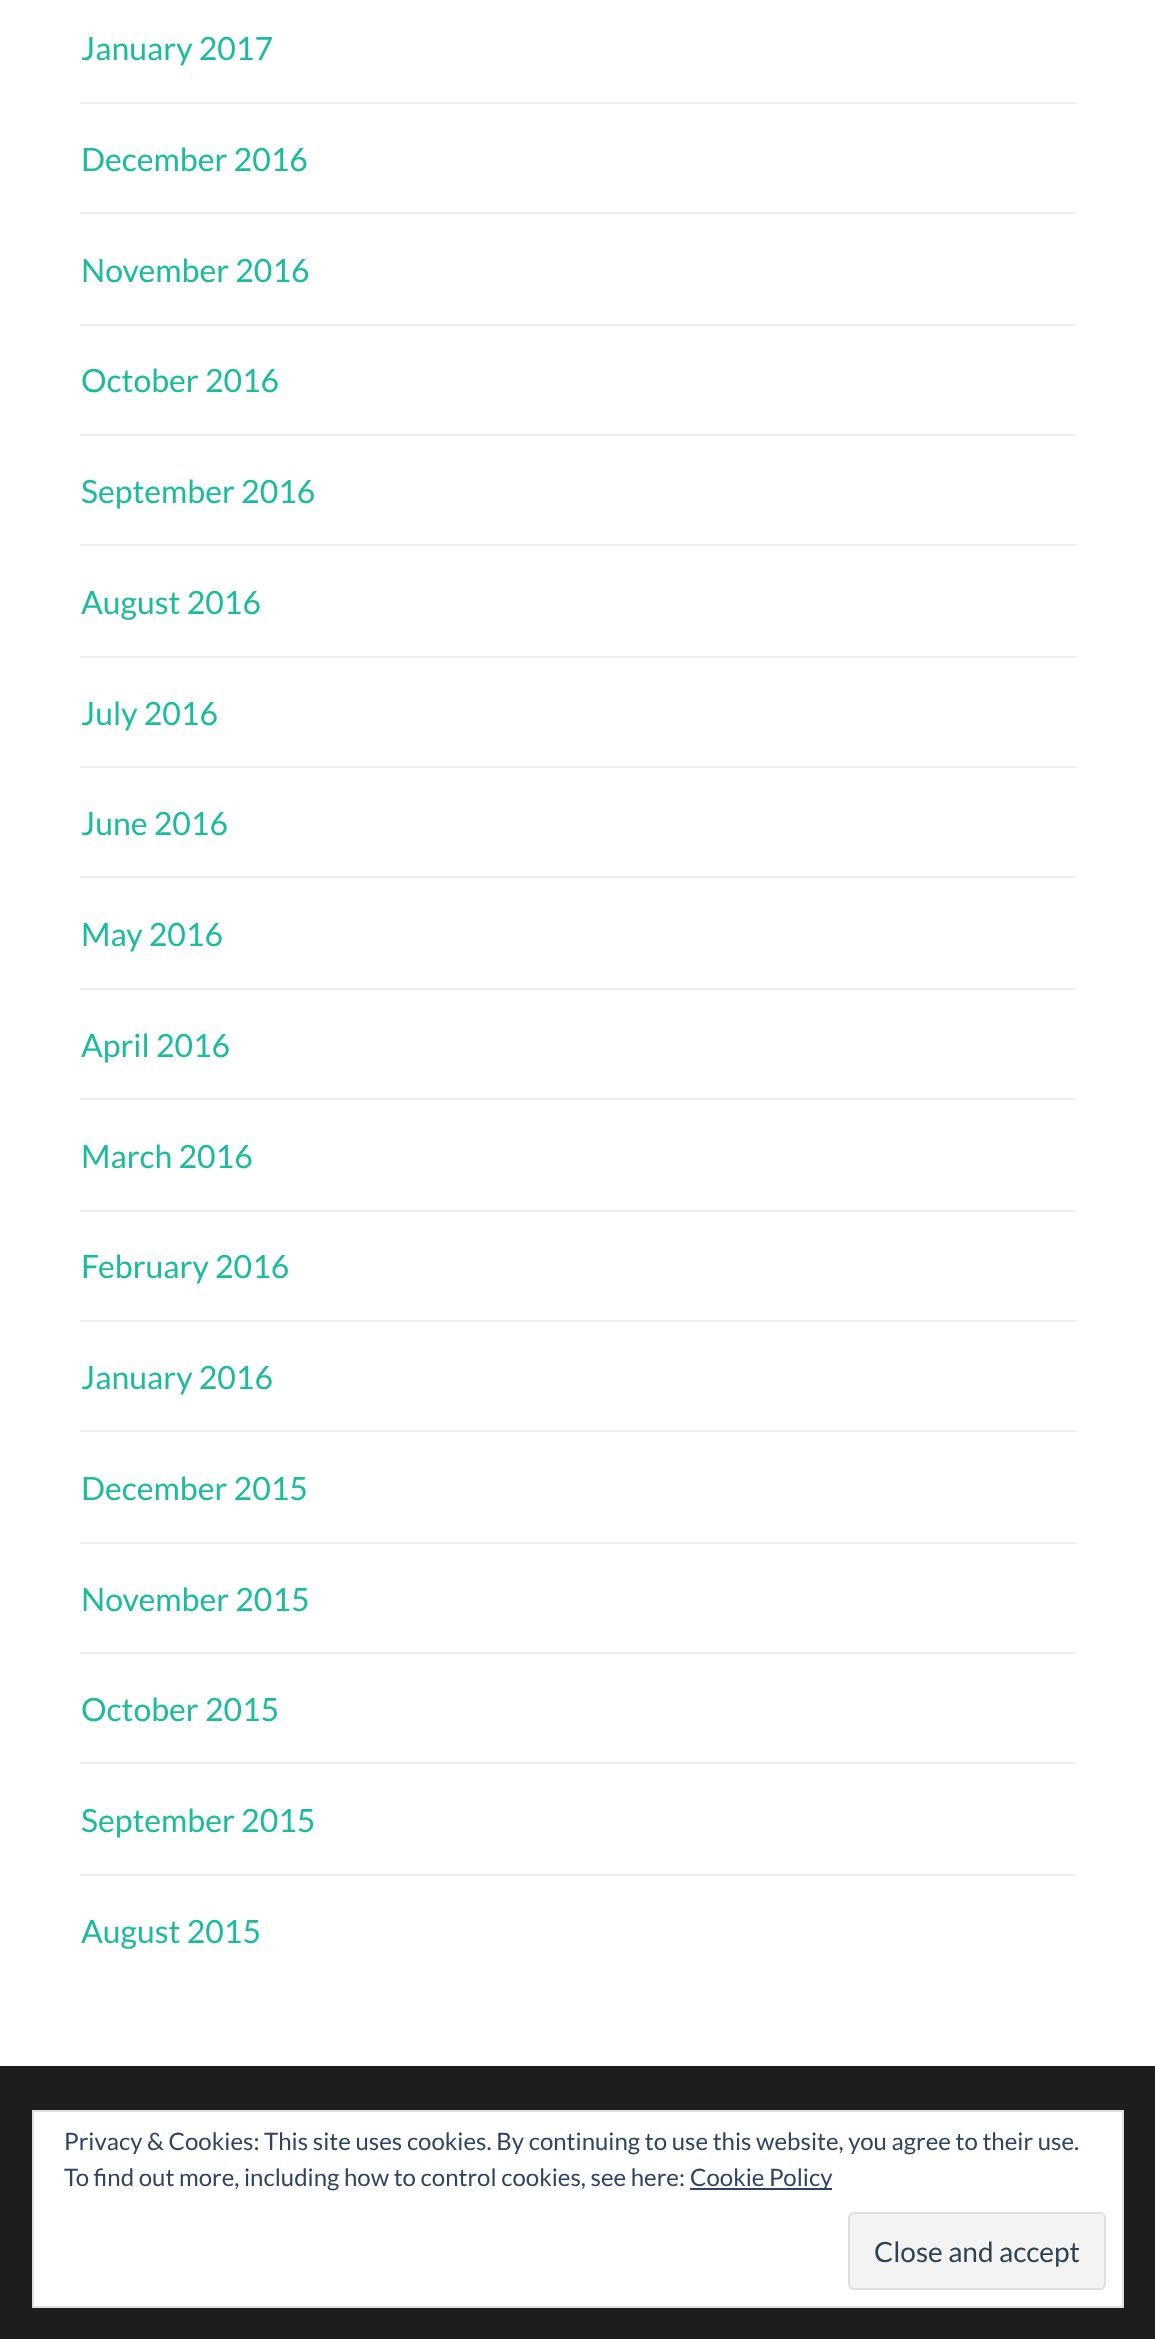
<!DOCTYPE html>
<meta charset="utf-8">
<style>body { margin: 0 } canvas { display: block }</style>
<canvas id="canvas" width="1155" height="2339"></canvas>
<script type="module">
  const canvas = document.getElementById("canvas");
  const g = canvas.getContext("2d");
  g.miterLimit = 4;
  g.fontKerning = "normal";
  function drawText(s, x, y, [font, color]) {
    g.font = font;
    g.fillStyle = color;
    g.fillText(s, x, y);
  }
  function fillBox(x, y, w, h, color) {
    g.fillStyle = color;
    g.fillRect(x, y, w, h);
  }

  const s1 = ["32px Lato", "#1ABC9C"];
  const s2 = ["24px Lato", "#2E4467"];
  const s3 = ["28px Lato", "#2E4453"];

  fillBox(0, 0, 1155, 2339, "#FFFFFF");
  drawText("January 2017", 81, 60, s1);
  fillBox(80, 102, 996, 2, "#EEEEEE");
  drawText("December 2016", 81, 171, s1);
  fillBox(80, 212, 996, 2, "#EEEEEE");
  drawText("November 2016", 81, 282, s1);
  fillBox(80, 324, 996, 2, "#EEEEEE");
  drawText("October 2016", 81, 392, s1);
  fillBox(80, 434, 996, 2, "#EEEEEE");
  drawText("September 2016", 81, 503, s1);
  fillBox(80, 544, 996, 2, "#EEEEEE");
  drawText("August 2016", 81, 614, s1);
  fillBox(80, 656, 996, 2, "#EEEEEE");
  drawText("July 2016", 81, 725, s1);
  fillBox(80, 766, 996, 2, "#EEEEEE");
  drawText("June 2016", 81, 835, s1);
  fillBox(80, 876, 996, 2, "#EEEEEE");
  drawText("May 2016", 81, 946, s1);
  fillBox(80, 988, 996, 2, "#EEEEEE");
  drawText("April 2016", 81, 1057, s1);
  fillBox(80, 1098, 996, 2, "#EEEEEE");
  drawText("March 2016", 81, 1168, s1);
  fillBox(80, 1210, 996, 2, "#EEEEEE");
  drawText("February 2016", 81, 1278, s1);
  fillBox(80, 1320, 996, 2, "#EEEEEE");
  drawText("January 2016", 81, 1389, s1);
  fillBox(80, 1430, 996, 2, "#EEEEEE");
  drawText("December 2015", 81, 1500, s1);
  fillBox(80, 1542, 996, 2, "#EEEEEE");
  drawText("November 2015", 81, 1611, s1);
  fillBox(80, 1652, 996, 2, "#EEEEEE");
  drawText("October 2015", 81, 1721, s1);
  fillBox(80, 1762, 996, 2, "#EEEEEE");
  drawText("September 2015", 81, 1832, s1);
  fillBox(80, 1874, 996, 2, "#EEEEEE");
  drawText("August 2015", 81, 1943, s1);
  fillBox(0, 2066, 1155, 273, "#1D1D1D");
  g.fillStyle = "#FFFFFF";
  g.beginPath();
  g.rect(33, 2111, 1090, 196);
  g.fill();
  g.strokeStyle = "#DEDEDE";
  g.lineWidth = 2;
  g.stroke();
  drawText("Privacy & Cookies: This site uses cookies. By continuing to use this website, you agree to their use.", 64, 2150, s2);
  drawText("To find out more, including how to control cookies, see here:", 64, 2186, s2);
  fillBox(690, 2188, 142, 2, "#2E4467");
  drawText("Cookie Policy", 690, 2186, s2);
  g.fillStyle = "#F3F3F3";
  g.beginPath();
  g.roundRect(849, 2213, 256, 76, 5);
  g.fill();
  g.stroke();
  drawText("Close and accept", 874, 2262, s3);
</script>
